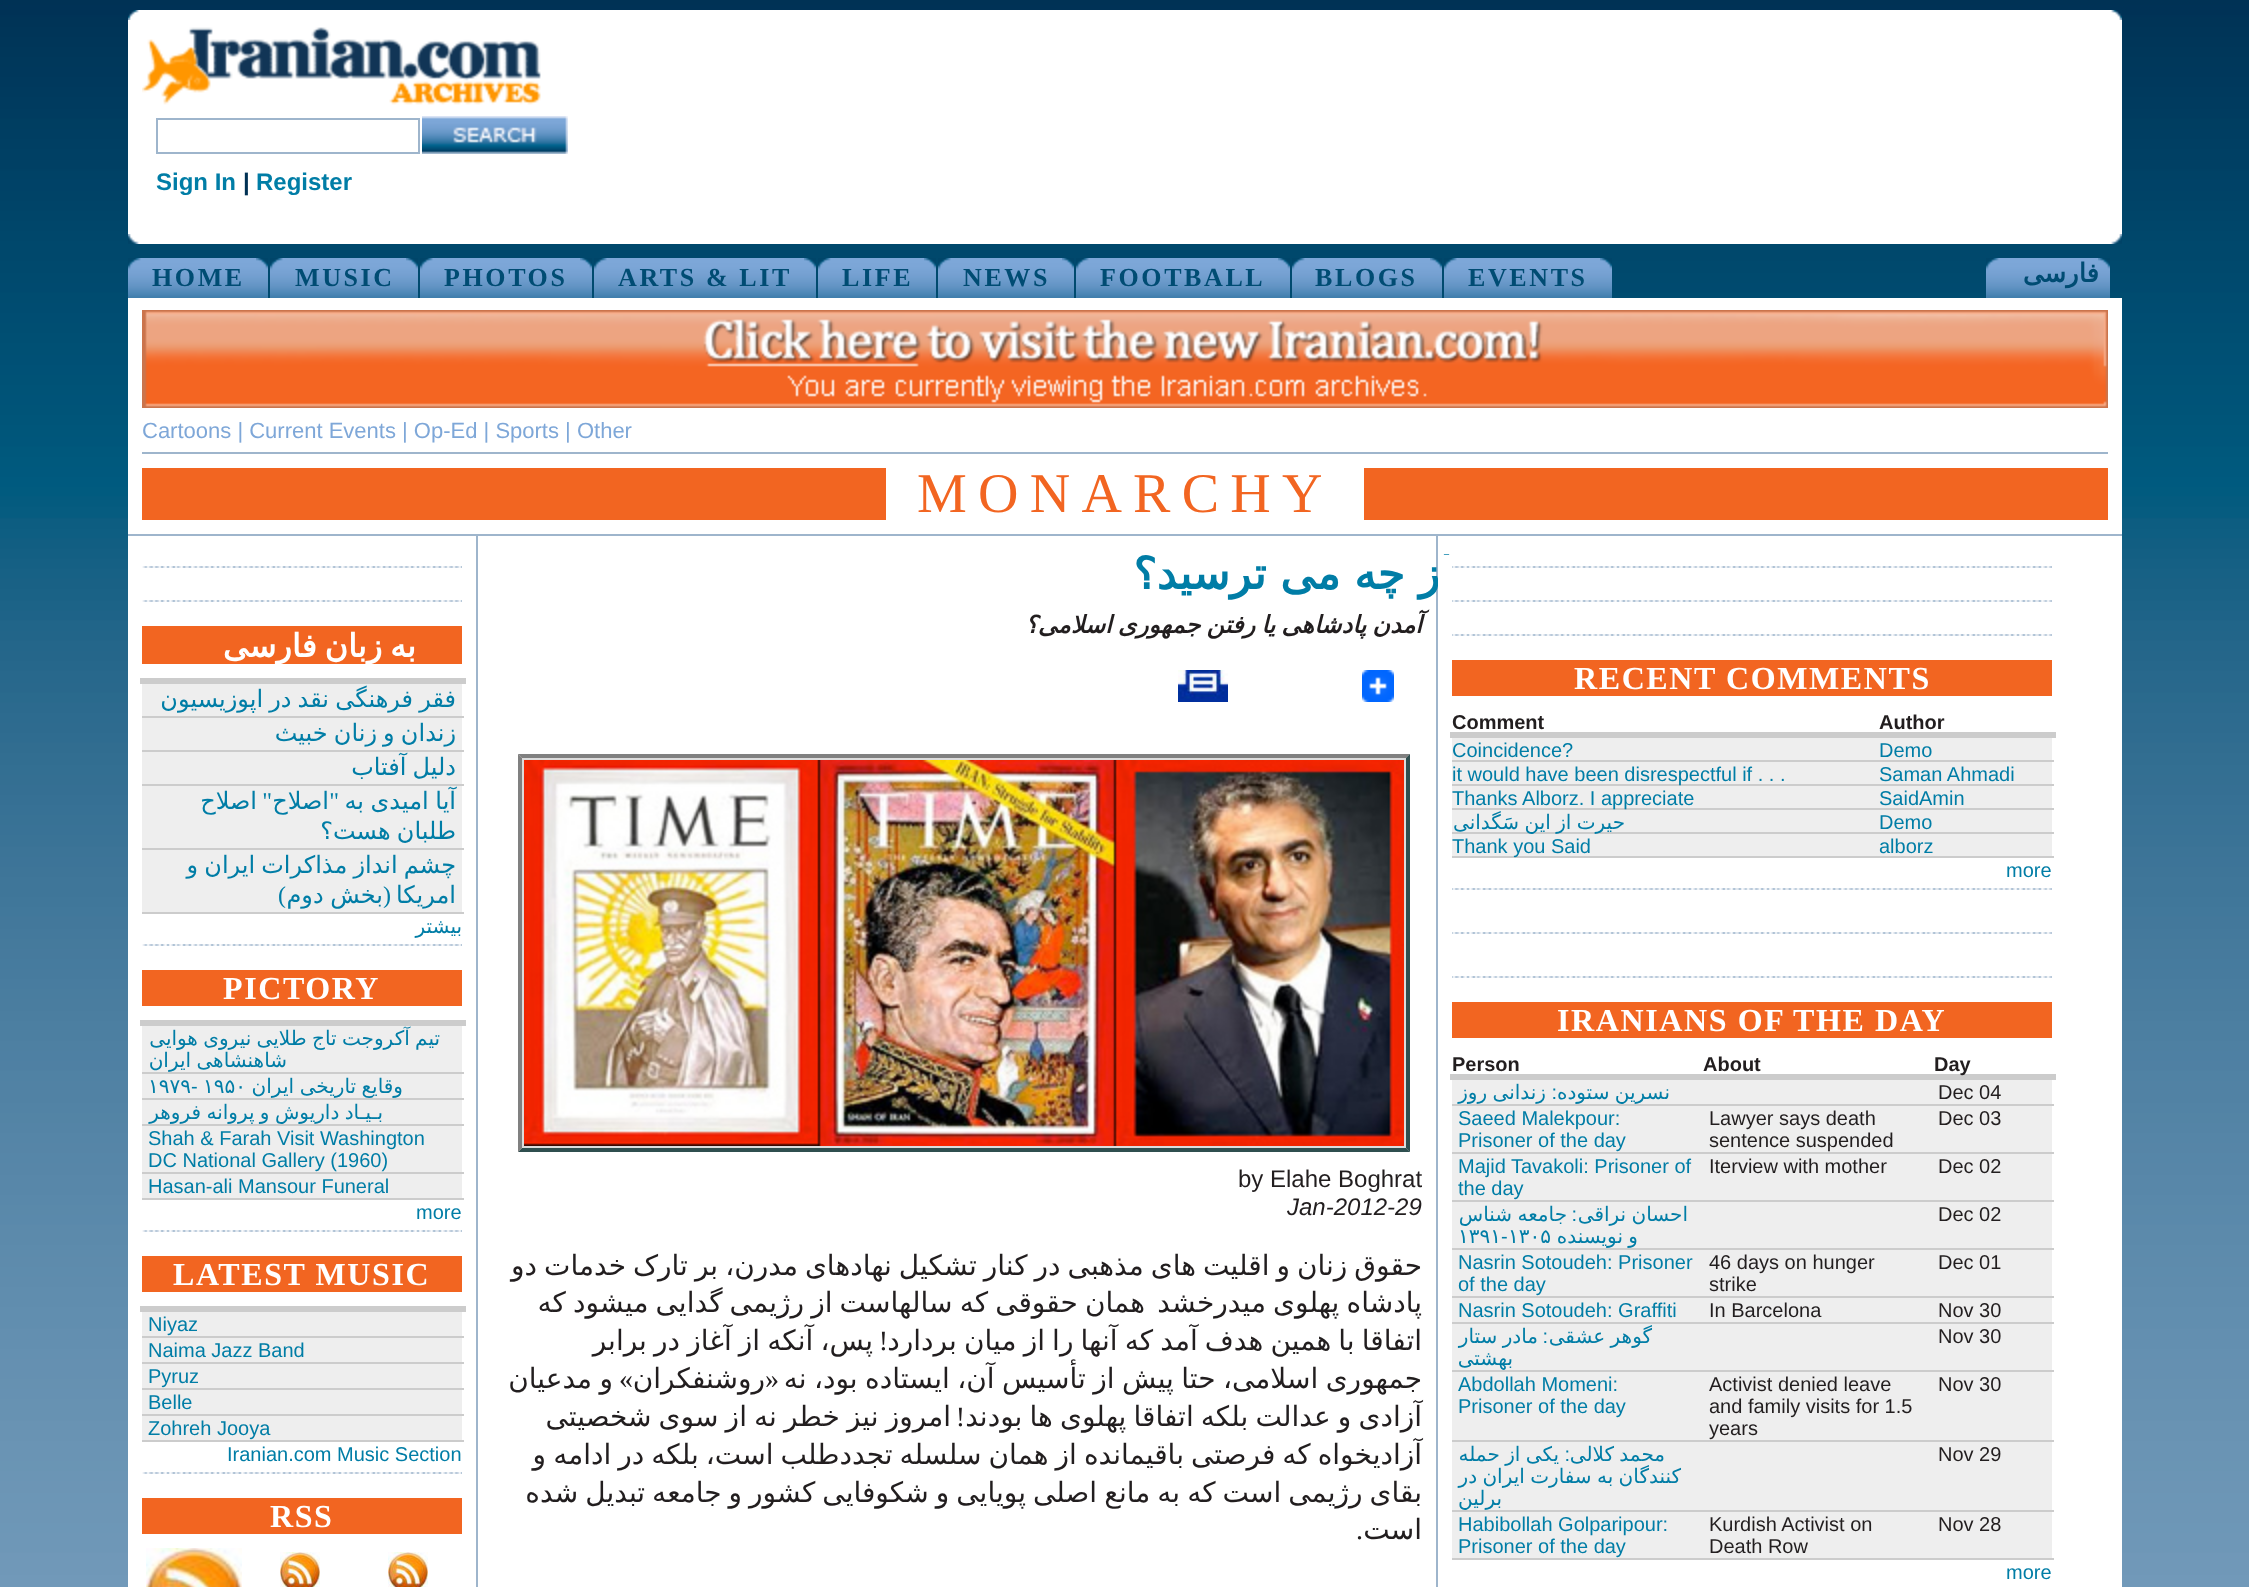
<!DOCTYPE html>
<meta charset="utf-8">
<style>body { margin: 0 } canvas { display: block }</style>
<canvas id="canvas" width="2249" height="1587"></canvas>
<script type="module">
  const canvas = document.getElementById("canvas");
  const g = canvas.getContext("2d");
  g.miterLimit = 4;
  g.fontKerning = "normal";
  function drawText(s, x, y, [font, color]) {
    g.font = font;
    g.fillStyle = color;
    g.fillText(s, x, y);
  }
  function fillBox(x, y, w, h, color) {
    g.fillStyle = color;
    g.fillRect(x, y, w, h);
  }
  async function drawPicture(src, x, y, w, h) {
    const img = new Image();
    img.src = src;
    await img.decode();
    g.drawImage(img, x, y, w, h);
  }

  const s1 = ["bold 24px Liberation Sans", "#007DA6"];
  const s2 = ["bold 24px Liberation Sans", "#003154"];
  const s3 = ["bold 26px Liberation Serif", "#004C73"];
  const s4 = ["bold 26px DejaVu Sans", "#004C73"];
  const s5 = ["22px Liberation Sans", "#7EA7D8"];
  const s6 = ["56px Liberation Serif", "#F26521"];
  const s7 = ["bold 32px DejaVu Sans", "#FFFFFF"];
  const s8 = ["24px DejaVu Sans", "#007DA6"];
  const s9 = ["24px Liberation Serif", "#007DA6"];
  const s10 = ["20px DejaVu Sans", "#007DA6"];
  const s11 = ["bold 32px Liberation Serif", "#FFFFFF"];
  const s12 = ["20px Liberation Sans", "#007DA6"];
  const s13 = ["bold 44px DejaVu Sans", "#007DA6"];
  const s14 = ["italic bold 24px DejaVu Sans", "#221E1F"];
  const s15 = ["24px Liberation Sans", "#221E1F"];
  const s16 = ["italic 24px Liberation Sans", "#221E1F"];
  const s17 = ["28px DejaVu Sans", "#221E1F"];
  const s18 = ["28px Liberation Serif", "#221E1F"];
  const s19 = ["bold 20px Liberation Sans", "#221E1F"];
  const s20 = ["20px Liberation Sans", "#221E1F"];

  fillBox(0, 0, 2249, 1587, "#FFFFFF");
  await drawPicture("pic1.png", 0, 0, 2249, 1587);
  fillBox(128, 20, 1994, 214, "#FFFFFF");
  await drawPicture("pic2.png", 128, 10, 1994, 10);
  await drawPicture("pic3.png", 142, 27, 399, 78);
  g.strokeStyle = "#9EB5CC";
  g.lineWidth = 2;
  g.strokeRect(157, 119, 262, 34);
  await drawPicture("pic4.png", 422, 116, 146, 38);
  drawText("Sign In", 156, 190, s1);
  drawText("|", 243, 190, s2);
  drawText("Register", 256, 190, s1);
  await drawPicture("pic5.png", 128, 234, 1994, 10);
  await drawPicture("pic6.png", 256, 258, 12, 40);
  await drawPicture("pic7.png", 128, 258, 128, 40);
  g.letterSpacing = "2.6px";
  drawText("HOME", 152, 286, s3);
  await drawPicture("pic6.png", 406, 258, 12, 40);
  await drawPicture("pic8.png", 270, 258, 136, 40);
  drawText("MUSIC", 295, 286, s3);
  await drawPicture("pic6.png", 580, 258, 12, 40);
  await drawPicture("pic9.png", 420, 258, 160, 40);
  drawText("PHOTOS", 444, 286, s3);
  await drawPicture("pic6.png", 804, 258, 12, 40);
  await drawPicture("pic10.png", 594, 258, 210, 40);
  drawText("ARTS & LIT", 618, 286, s3);
  await drawPicture("pic6.png", 924, 258, 12, 40);
  await drawPicture("pic11.png", 818, 258, 106, 40);
  drawText("LIFE", 842, 286, s3);
  await drawPicture("pic6.png", 1062, 258, 12, 40);
  await drawPicture("pic12.png", 938, 258, 124, 40);
  drawText("NEWS", 963, 286, s3);
  await drawPicture("pic6.png", 1278, 258, 12, 40);
  await drawPicture("pic13.png", 1076, 258, 202, 40);
  drawText("FOOTBALL", 1100, 286, s3);
  await drawPicture("pic6.png", 1430, 258, 12, 40);
  await drawPicture("pic14.png", 1292, 258, 138, 40);
  drawText("BLOGS", 1315, 286, s3);
  await drawPicture("pic6.png", 1600, 258, 12, 40);
  await drawPicture("pic15.png", 1444, 258, 156, 40);
  drawText("EVENTS", 1468, 286, s3);
  await drawPicture("pic6.png", 2098, 258, 12, 40);
  await drawPicture("pic16.png", 1986, 258, 112, 40);
  g.direction = "rtl";
  drawText("فارسی", 2099, 282, s4);
  fillBox(128, 536, 1994, 1051, "#FFFFFF");
  fillBox(128, 298, 1994, 236, "#FFFFFF");
  fillBox(128, 534, 1994, 2, "#9EB5CC");
  await drawPicture("pic17.png", 142, 310, 1966, 98);
  fillBox(142, 452, 1966, 2, "#9EB5CC");
  g.letterSpacing = "0px";
  g.direction = "ltr";
  drawText("Cartoons | Current Events | Op-Ed | Sports | Other", 142, 438, s5);
  fillBox(142, 468, 1966, 52, "#F26521");
  fillBox(886, 468, 478, 52, "#FFFFFF");
  g.letterSpacing = "11.25px";
  drawText("MONARCHY", 917, 512, s6);
  fillBox(476, 536, 2, 1051, "#9EB5CC");
  await drawPicture("pic18.png", 142, 566, 320, 2);
  await drawPicture("pic18.png", 142, 600, 320, 2);
  await drawPicture("pic18.png", 142, 944, 320, 2);
  fillBox(142, 626, 320, 38, "#F26521");
  g.letterSpacing = "1.6px";
  g.wordSpacing = "-4px";
  g.direction = "rtl";
  drawText("به زبان فارسی", 416, 657, s7);
  fillBox(140, 678, 326, 6, "#CCCCCC");
  fillBox(142, 684, 320, 32, "#EEEEEE");
  fillBox(142, 716, 322, 2, "#CCCCCC");
  g.letterSpacing = "0px";
  g.wordSpacing = "-1.5px";
  drawText("فقر فرهنگی نقد در اپوزیسیون", 456, 707, s8);
  fillBox(142, 718, 320, 32, "#EEEEEE");
  fillBox(142, 750, 322, 2, "#CCCCCC");
  drawText("زندان و زنان خبیث", 456, 741, s8);
  fillBox(142, 752, 320, 32, "#EEEEEE");
  fillBox(142, 784, 322, 2, "#CCCCCC");
  drawText("دلیل آفتاب", 456, 775, s8);
  fillBox(142, 786, 320, 62, "#EEEEEE");
  fillBox(142, 848, 322, 2, "#CCCCCC");
  g.wordSpacing = "0px";
  drawText("اصلاح", 257, 809, s8);
  drawText("\"", 272, 809, s9);
  drawText("اصلاح", 329, 809, s8);
  drawText("\"", 339, 809, s9);
  g.wordSpacing = "-1px";
  drawText("آیا امیدی به", 456, 809, s8);
  g.wordSpacing = "-1.5px";
  drawText("طلبان هست؟", 456, 839, s8);
  fillBox(142, 850, 320, 62, "#EEEEEE");
  fillBox(142, 912, 322, 2, "#CCCCCC");
  drawText("چشم انداز مذاکرات ایران و", 456, 873, s8);
  g.wordSpacing = "0px";
  drawText(")", 286, 903, s9);
  g.wordSpacing = "-1px";
  drawText("بخش دوم", 383, 903, s8);
  g.wordSpacing = "0px";
  drawText("(", 391, 903, s9);
  drawText("امریکا", 456, 903, s8);
  drawText("بیشتر", 462, 933, s10);
  await drawPicture("pic18.png", 142, 1230, 320, 2);
  fillBox(142, 970, 320, 36, "#F26521");
  g.letterSpacing = "1.6px";
  g.direction = "ltr";
  drawText("PICTORY", 223, 999, s11);
  fillBox(140, 1020, 326, 6, "#CCCCCC");
  fillBox(142, 1026, 320, 46, "#EEEEEE");
  fillBox(142, 1072, 322, 2, "#CCCCCC");
  g.letterSpacing = "0px";
  g.wordSpacing = "-1px";
  g.direction = "rtl";
  drawText("تیم آکروجت تاج طلایی نیروی هوایی", 440, 1045, s10);
  drawText("شاهنشاهی ایران", 287, 1067, s10);
  fillBox(142, 1074, 320, 24, "#EEEEEE");
  fillBox(142, 1098, 322, 2, "#CCCCCC");
  g.wordSpacing = "0px";
  g.direction = "ltr";
  drawText("۱۹۷۹", 148, 1093, s10);
  drawText("-", 191, 1093, s12);
  drawText("۱۹۵۰", 203, 1093, s10);
  g.direction = "rtl";
  drawText("ایران", 294, 1093, s10);
  g.wordSpacing = "-1px";
  drawText("وقایع تاریخی", 403, 1093, s10);
  fillBox(142, 1100, 320, 24, "#EEEEEE");
  fillBox(142, 1124, 322, 2, "#CCCCCC");
  drawText("بـیـاد داریوش و پروانه فروهر", 383, 1119, s10);
  fillBox(142, 1126, 320, 46, "#EEEEEE");
  fillBox(142, 1172, 322, 2, "#CCCCCC");
  g.wordSpacing = "0px";
  g.direction = "ltr";
  drawText("Shah & Farah Visit Washington", 148, 1145, s12);
  drawText("DC National Gallery (1960)", 148, 1167, s12);
  fillBox(142, 1174, 320, 24, "#EEEEEE");
  fillBox(142, 1198, 322, 2, "#CCCCCC");
  drawText("Hasan-ali Mansour Funeral", 148, 1193, s12);
  drawText("more", 416, 1219, s12);
  await drawPicture("pic18.png", 142, 1472, 320, 2);
  fillBox(142, 1256, 320, 36, "#F26521");
  g.letterSpacing = "1.6px";
  drawText("LATEST MUSIC", 173, 1285, s11);
  fillBox(140, 1306, 326, 6, "#CCCCCC");
  fillBox(142, 1312, 320, 24, "#EEEEEE");
  fillBox(142, 1336, 322, 2, "#CCCCCC");
  g.letterSpacing = "0px";
  drawText("Niyaz", 148, 1331, s12);
  fillBox(142, 1338, 320, 24, "#EEEEEE");
  fillBox(142, 1362, 322, 2, "#CCCCCC");
  drawText("Naima Jazz Band", 148, 1357, s12);
  fillBox(142, 1364, 320, 24, "#EEEEEE");
  fillBox(142, 1388, 322, 2, "#CCCCCC");
  drawText("Pyruz", 148, 1383, s12);
  fillBox(142, 1390, 320, 24, "#EEEEEE");
  fillBox(142, 1414, 322, 2, "#CCCCCC");
  drawText("Belle", 148, 1409, s12);
  fillBox(142, 1416, 320, 24, "#EEEEEE");
  fillBox(142, 1440, 322, 2, "#CCCCCC");
  drawText("Zohreh Jooya", 148, 1435, s12);
  drawText("Iranian.com Music Section", 227, 1461, s12);
  fillBox(142, 1498, 320, 36, "#F26521");
  g.letterSpacing = "1.6px";
  drawText("RSS", 270, 1527, s11);
  await drawPicture("pic19.png", 146, 1548, 96, 39);
  await drawPicture("pic20.png", 280, 1552, 40, 35);
  await drawPicture("pic20.png", 388, 1552, 40, 35);
  fillBox(1436, 536, 2, 1051, "#9EB5CC");
  g.letterSpacing = "2.25px";
  g.wordSpacing = "-2.5px";
  g.direction = "rtl";
  drawText("از چه می ترسید؟", 1452, 589, s13);
  g.letterSpacing = "0px";
  g.wordSpacing = "-1.5px";
  drawText("آمدن پادشاهی یا رفتن جمهوری اسلامی؟", 1422, 633, s14);
  await drawPicture("pic21.png", 1178, 670, 50, 32);
  await drawPicture("pic22.png", 1362, 670, 32, 32);
  fillBox(518, 754, 892, 398, "#DCDCDC");
  g.fillStyle = "#808080";
  g.beginPath();
  g.moveTo(518, 754);
  g.lineTo(1410, 754);
  g.lineTo(1406, 758);
  g.lineTo(522, 758);
  g.closePath();
  g.fill();
  g.fillStyle = "#2F4F4F";
  g.beginPath();
  g.moveTo(1410, 754);
  g.lineTo(1410, 1152);
  g.lineTo(1406, 1148);
  g.lineTo(1406, 758);
  g.closePath();
  g.fill();
  g.beginPath();
  g.moveTo(1410, 1152);
  g.lineTo(518, 1152);
  g.lineTo(522, 1148);
  g.lineTo(1406, 1148);
  g.closePath();
  g.fill();
  g.fillStyle = "#808080";
  g.beginPath();
  g.moveTo(518, 1152);
  g.lineTo(518, 754);
  g.lineTo(522, 758);
  g.lineTo(522, 1148);
  g.closePath();
  g.fill();
  await drawPicture("pic23.png", 524, 760, 880, 386);
  g.wordSpacing = "0px";
  g.direction = "ltr";
  drawText("by Elahe Boghrat", 1238, 1187, s15);
  drawText("Jan-2012-29", 1287, 1215, s16);
  g.wordSpacing = "-1.9px";
  g.direction = "rtl";
  drawText("حقوق زنان و اقلیت های مذهبی در کنار تشکیل نهادهای مدرن، بر تارک خدمات دو", 1422, 1275, s17);
  g.wordSpacing = "-1.75px";
  drawText("همان حقوقی که سالهاست از رژیمی گدایی میشود که", 1145, 1312, s17);
  drawText("پادشاه پهلوی میدرخشد", 1422, 1312, s17);
  drawText("پس، آنکه از آغاز در برابر", 873, 1350, s17);
  g.wordSpacing = "0px";
  drawText("!", 888, 1350, s18);
  g.wordSpacing = "-1.75px";
  drawText("اتفاقا با همین هدف آمد که آنها را از میان بردارد", 1422, 1350, s17);
  g.wordSpacing = "-1.5px";
  drawText("و مدعیان", 613, 1388, s17);
  g.wordSpacing = "0px";
  drawText("»", 633, 1388, s18);
  drawText("روشنفکران", 765, 1388, s17);
  drawText("«", 779, 1388, s18);
  g.wordSpacing = "-1.5px";
  drawText("جمهوری اسلامی، حتا پیش از تأسیس آن، ایستاده بود، نه", 1422, 1388, s17);
  g.wordSpacing = "-1.75px";
  drawText("امروز نیز خطر نه از سوی شخصیتی", 951, 1426, s17);
  g.wordSpacing = "0px";
  drawText("!", 965, 1426, s18);
  g.wordSpacing = "-1.75px";
  drawText("آزادی و عدالت بلکه اتفاقا پهلوی ها بودند", 1422, 1426, s17);
  g.wordSpacing = "-1.9px";
  drawText("آزادیخواه که فرصتی باقیمانده از همان سلسله تجددطلب است، بلکه در ادامه و", 1422, 1464, s17);
  drawText("بقای رژیمی است که به مانع اصلی پویایی و شکوفایی کشور و جامعه تبدیل شده", 1422, 1502, s17);
  g.wordSpacing = "0px";
  drawText(".", 1363, 1539, s18);
  drawText("است", 1422, 1539, s17);
  fillBox(1438, 555, 16, 38, "#FFFFFF");
  await drawPicture("pic24.png", 1452, 566, 600, 2);
  await drawPicture("pic24.png", 1452, 600, 600, 2);
  await drawPicture("pic24.png", 1452, 634, 600, 2);
  await drawPicture("pic24.png", 1452, 888, 600, 2);
  fillBox(1452, 660, 600, 36, "#F26521");
  g.letterSpacing = "1.6px";
  g.direction = "ltr";
  drawText("RECENT COMMENTS", 1574, 689, s11);
  g.letterSpacing = "0px";
  drawText("Comment", 1452, 729, s19);
  fillBox(1450, 732, 606, 6, "#CCCCCC");
  drawText("Author", 1879, 729, s19);
  fillBox(1452, 738, 600, 22, "#EEEEEE");
  fillBox(1452, 760, 602, 2, "#CCCCCC");
  drawText("Coincidence?", 1452, 757, s12);
  drawText("Demo", 1879, 757, s12);
  fillBox(1452, 762, 600, 22, "#EEEEEE");
  fillBox(1452, 784, 602, 2, "#CCCCCC");
  drawText("it would have been disrespectful if . . .", 1452, 781, s12);
  drawText("Saman Ahmadi", 1879, 781, s12);
  fillBox(1452, 786, 600, 22, "#EEEEEE");
  fillBox(1452, 808, 602, 2, "#CCCCCC");
  drawText("Thanks Alborz. I appreciate", 1452, 805, s12);
  drawText("SaidAmin", 1879, 805, s12);
  fillBox(1452, 810, 600, 22, "#EEEEEE");
  fillBox(1452, 832, 602, 2, "#CCCCCC");
  g.wordSpacing = "-1px";
  g.direction = "rtl";
  drawText("حیرت از این سَگدانی", 1625, 829, s10);
  g.wordSpacing = "0px";
  g.direction = "ltr";
  drawText("Demo", 1879, 829, s12);
  fillBox(1452, 834, 600, 22, "#EEEEEE");
  fillBox(1452, 856, 602, 2, "#CCCCCC");
  drawText("Thank you Said", 1452, 853, s12);
  drawText("alborz", 1879, 853, s12);
  drawText("more", 2006, 877, s12);
  await drawPicture("pic24.png", 1452, 932, 600, 2);
  await drawPicture("pic24.png", 1452, 976, 600, 2);
  fillBox(1452, 1002, 600, 36, "#F26521");
  g.letterSpacing = "1.6px";
  drawText("IRANIANS OF THE DAY", 1557, 1031, s11);
  g.letterSpacing = "0px";
  drawText("Person", 1452, 1071, s19);
  drawText("About", 1703, 1071, s19);
  fillBox(1450, 1074, 606, 6, "#CCCCCC");
  drawText("Day", 1934, 1071, s19);
  fillBox(1452, 1080, 600, 24, "#EEEEEE");
  fillBox(1452, 1104, 602, 2, "#CCCCCC");
  g.wordSpacing = "-1px";
  g.direction = "rtl";
  drawText("زندانی روز", 1546, 1099, s10);
  g.wordSpacing = "0px";
  drawText(":", 1557, 1099, s12);
  g.wordSpacing = "-1px";
  drawText("نسرین ستوده", 1670, 1099, s10);
  g.wordSpacing = "0px";
  g.direction = "ltr";
  drawText("Dec 04", 1938, 1099, s20);
  fillBox(1452, 1106, 600, 46, "#EEEEEE");
  fillBox(1452, 1152, 602, 2, "#CCCCCC");
  drawText("Saeed Malekpour:", 1458, 1125, s12);
  drawText("Prisoner of the day", 1458, 1147, s12);
  drawText("Lawyer says death", 1709, 1125, s20);
  drawText("sentence suspended", 1709, 1147, s20);
  drawText("Dec 03", 1938, 1125, s20);
  fillBox(1452, 1154, 600, 46, "#EEEEEE");
  fillBox(1452, 1200, 602, 2, "#CCCCCC");
  drawText("Majid Tavakoli: Prisoner of", 1458, 1173, s12);
  drawText("the day", 1458, 1195, s12);
  drawText("Iterview with mother", 1709, 1173, s20);
  drawText("Dec 02", 1938, 1173, s20);
  fillBox(1452, 1202, 600, 46, "#EEEEEE");
  fillBox(1452, 1248, 602, 2, "#CCCCCC");
  g.wordSpacing = "-1px";
  g.direction = "rtl";
  drawText("جامعه شناس", 1567, 1221, s10);
  g.wordSpacing = "0px";
  drawText(":", 1577, 1221, s12);
  g.wordSpacing = "-1px";
  drawText("احسان نراقی", 1688, 1221, s10);
  g.wordSpacing = "0px";
  g.direction = "ltr";
  drawText("۱۳۹۱", 1458, 1243, s10);
  drawText("-", 1501, 1243, s12);
  drawText("۱۳۰۵", 1508, 1243, s10);
  g.wordSpacing = "-1px";
  g.direction = "rtl";
  drawText("و نویسنده", 1638, 1243, s10);
  g.wordSpacing = "0px";
  g.direction = "ltr";
  drawText("Dec 02", 1938, 1221, s20);
  fillBox(1452, 1250, 600, 46, "#EEEEEE");
  fillBox(1452, 1296, 602, 2, "#CCCCCC");
  drawText("Nasrin Sotoudeh: Prisoner", 1458, 1269, s12);
  drawText("of the day", 1458, 1291, s12);
  drawText("46 days on hunger", 1709, 1269, s20);
  drawText("strike", 1709, 1291, s20);
  drawText("Dec 01", 1938, 1269, s20);
  fillBox(1452, 1298, 600, 24, "#EEEEEE");
  fillBox(1452, 1322, 602, 2, "#CCCCCC");
  drawText("Nasrin Sotoudeh: Graffiti", 1458, 1317, s12);
  drawText("In Barcelona", 1709, 1317, s20);
  drawText("Nov 30", 1938, 1317, s20);
  fillBox(1452, 1324, 600, 46, "#EEEEEE");
  fillBox(1452, 1370, 602, 2, "#CCCCCC");
  g.wordSpacing = "-1px";
  g.direction = "rtl";
  drawText("مادر ستار", 1538, 1343, s10);
  g.wordSpacing = "0px";
  drawText(":", 1548, 1343, s12);
  g.wordSpacing = "-1px";
  drawText("گوهر عشقی", 1652, 1343, s10);
  g.wordSpacing = "0px";
  drawText("بهشتی", 1513, 1365, s10);
  g.direction = "ltr";
  drawText("Nov 30", 1938, 1343, s20);
  fillBox(1452, 1372, 600, 68, "#EEEEEE");
  fillBox(1452, 1440, 602, 2, "#CCCCCC");
  drawText("Abdollah Momeni:", 1458, 1391, s12);
  drawText("Prisoner of the day", 1458, 1413, s12);
  drawText("Activist denied leave", 1709, 1391, s20);
  drawText("and family visits for 1.5", 1709, 1413, s20);
  drawText("years", 1709, 1435, s20);
  drawText("Nov 30", 1938, 1391, s20);
  fillBox(1452, 1442, 600, 68, "#EEEEEE");
  fillBox(1452, 1510, 602, 2, "#CCCCCC");
  g.wordSpacing = "-1px";
  g.direction = "rtl";
  drawText("یکی از حمله", 1559, 1461, s10);
  g.wordSpacing = "0px";
  drawText(":", 1570, 1461, s12);
  g.wordSpacing = "-1px";
  drawText("محمد کلالی", 1665, 1461, s10);
  drawText("کنندگان به سفارت ایران در", 1681, 1483, s10);
  g.wordSpacing = "0px";
  drawText("برلین", 1502, 1505, s10);
  g.direction = "ltr";
  drawText("Nov 29", 1938, 1461, s20);
  fillBox(1452, 1512, 600, 46, "#EEEEEE");
  fillBox(1452, 1558, 602, 2, "#CCCCCC");
  drawText("Habibollah Golparipour:", 1458, 1531, s12);
  drawText("Prisoner of the day", 1458, 1553, s12);
  drawText("Kurdish Activist on", 1709, 1531, s20);
  drawText("Death Row", 1709, 1553, s20);
  drawText("Nov 28", 1938, 1531, s20);
  drawText("more", 2006, 1579, s12);
</script>
